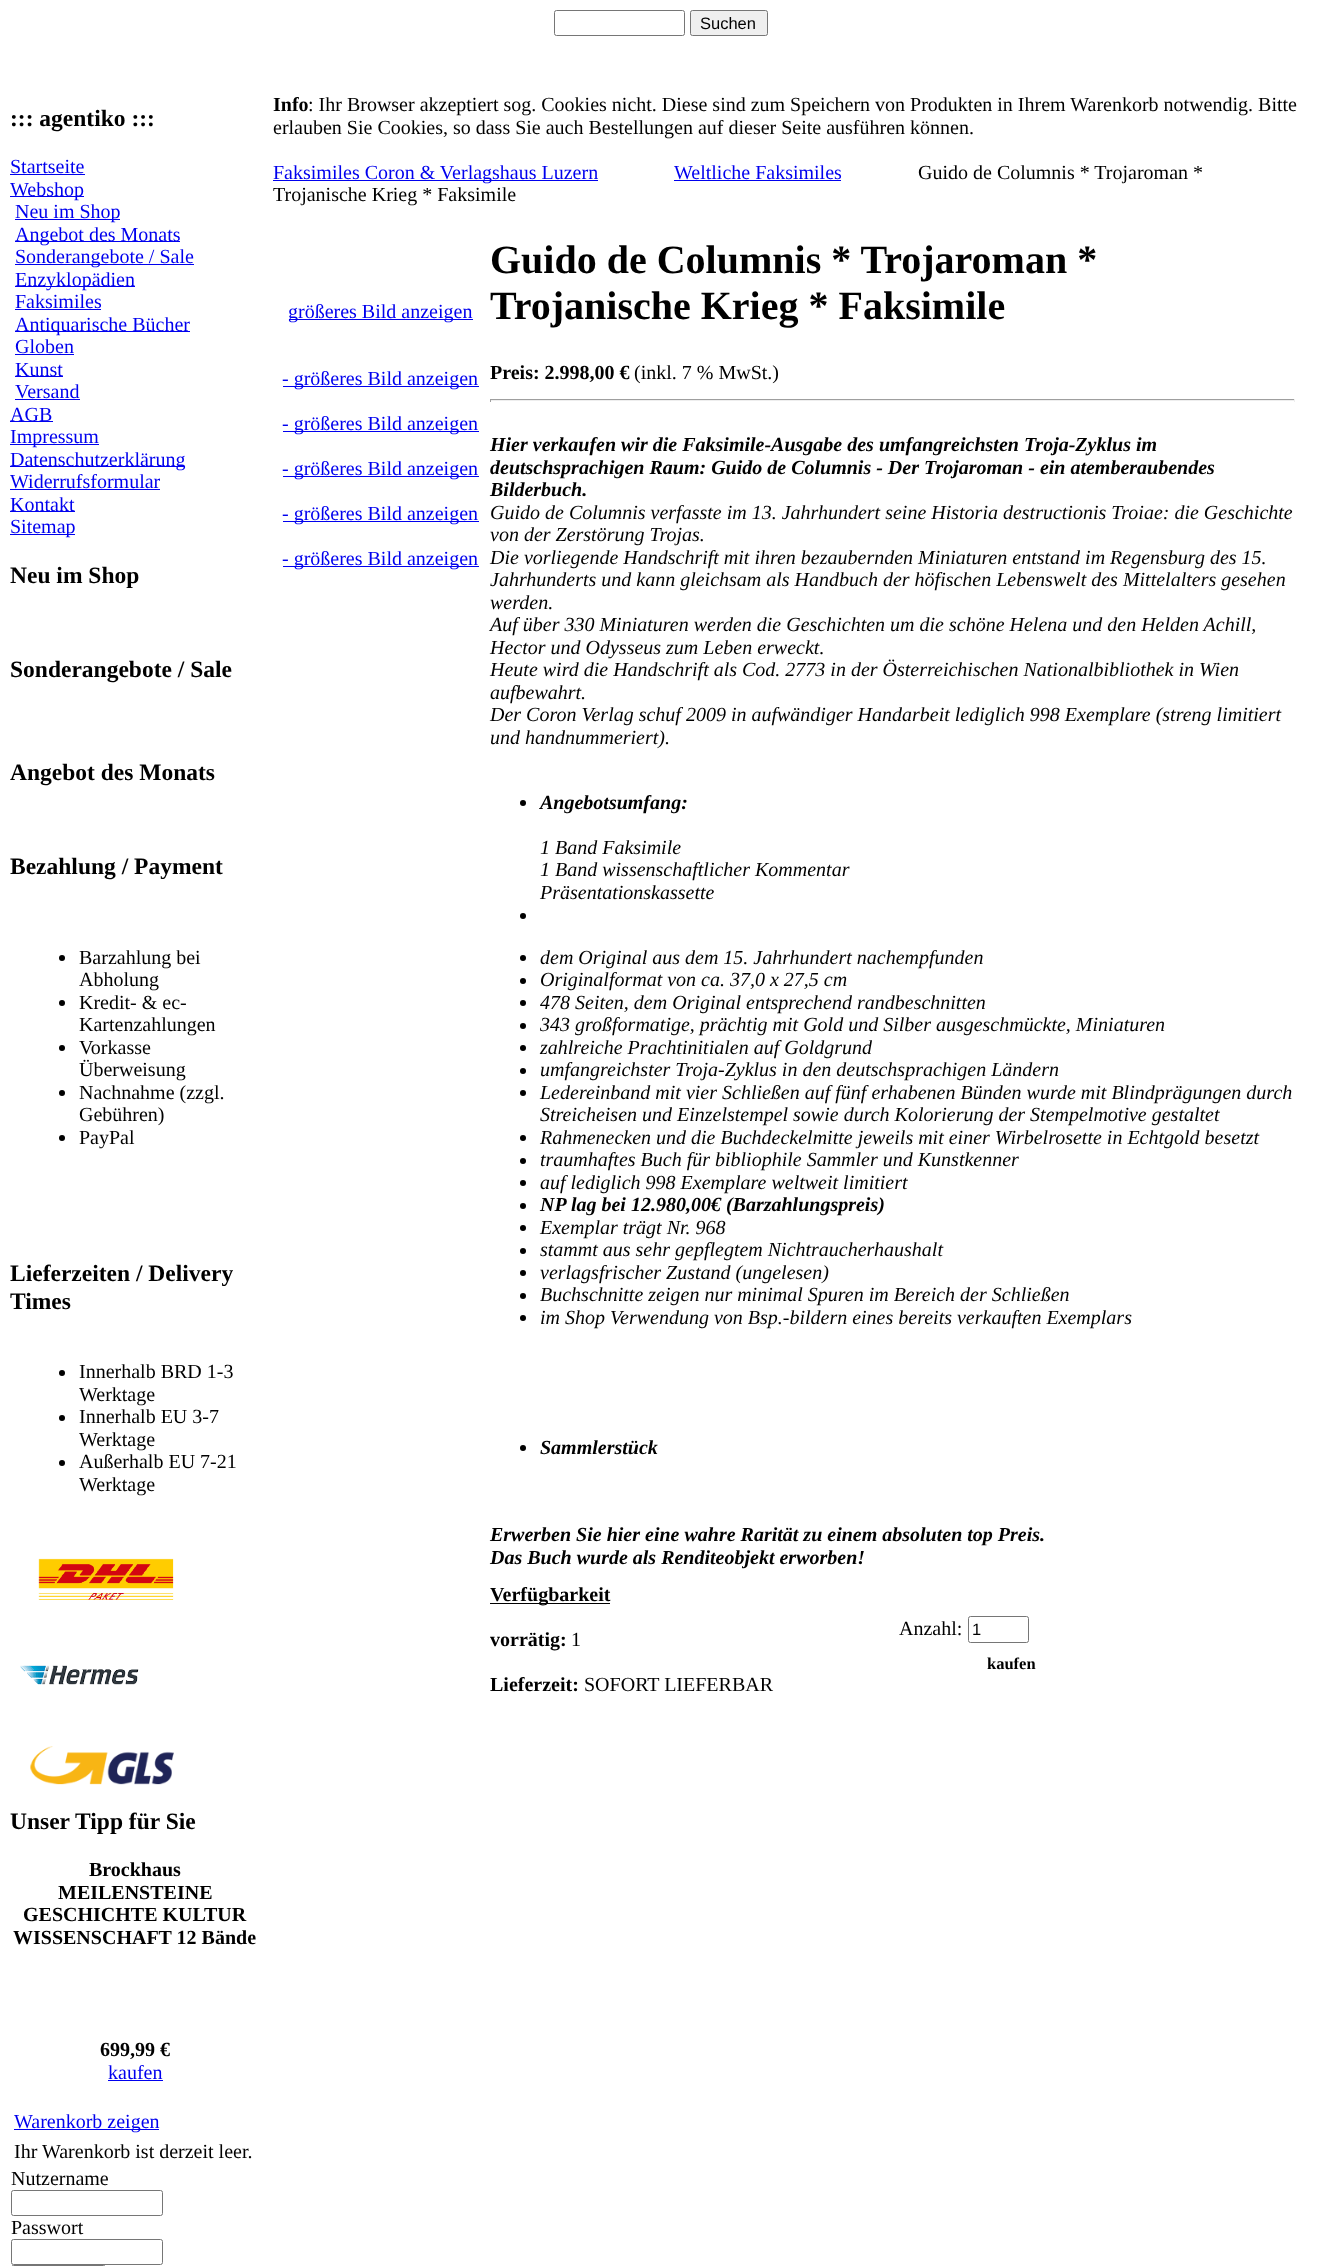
<!DOCTYPE html>
<meta charset="utf-8">
<style>body { margin: 0 } canvas { display: block }</style>
<canvas id="canvas" width="1321" height="2266"></canvas>
<script type="module">
  const canvas = document.getElementById("canvas");
  const g = canvas.getContext("2d");
  g.miterLimit = 4;
  g.fontKerning = "normal";
  function drawText(s, x, y, [font, color]) {
    g.font = font;
    g.fillStyle = color;
    g.fillText(s, x, y);
  }
  function fillBox(x, y, w, h, color) {
    g.fillStyle = color;
    g.fillRect(x, y, w, h);
  }
  async function drawPicture(src, x, y, w, h) {
    const img = new Image();
    img.src = src;
    await img.decode();
    g.drawImage(img, x, y, w, h);
  }

  const s1 = ["16.5px Liberation Sans", "#000000"];
  const s2 = ["bold 23.5px Liberation Serif", "#000000"];
  const s3 = ["20px Liberation Serif", "#0000EE"];
  const s4 = ["20px Liberation Serif", "#000000"];
  const s5 = ["bold 20px Liberation Serif", "#000000"];
  const s6 = ["bold 40px Liberation Serif", "#000000"];
  const s7 = ["italic bold 20px Liberation Serif", "#000000"];
  const s8 = ["italic 20px Liberation Serif", "#000000"];
  const s9 = ["bold 16.5px Liberation Serif", "#000000"];

  fillBox(0, 0, 1321, 2266, "#FFFFFF");
  g.beginPath();
  g.roundRect(554.5, 10.5, 130, 25, 2);
  g.strokeStyle = "#767676";
  g.stroke();
  g.fillStyle = "#EFEFEF";
  g.beginPath();
  g.roundRect(690.5, 10.5, 77, 25, 2);
  g.fill();
  g.stroke();
  drawText("Suchen", 700, 29, s1);
  drawText("::: agentiko :::", 10, 126, s2);
  drawText("Startseite", 10, 173, s3);
  fillBox(10, 174, 75, 1, "#0000EE");
  fillBox(10, 196, 74, 1, "#0000EE");
  drawText("Webshop", 10, 196, s3);
  fillBox(15, 219, 105, 1, "#0000EE");
  drawText("Neu im Shop", 15, 218, s3);
  fillBox(15, 241, 165, 1, "#0000EE");
  drawText("Angebot des Monats", 15, 241, s3);
  fillBox(15, 264, 179, 1, "#0000EE");
  drawText("Sonderangebote / Sale", 15, 263, s3);
  fillBox(15, 286, 120, 1, "#0000EE");
  drawText("Enzyklopädien", 15, 286, s3);
  drawText("Faksimiles", 15, 308, s3);
  fillBox(15, 309, 86, 1, "#0000EE");
  fillBox(15, 331, 175, 1, "#0000EE");
  drawText("Antiquarische Bücher", 15, 331, s3);
  drawText("Globen", 15, 353, s3);
  fillBox(15, 354, 59, 1, "#0000EE");
  fillBox(15, 376, 48, 1, "#0000EE");
  drawText("Kunst", 15, 376, s3);
  drawText("Versand", 15, 398, s3);
  fillBox(15, 399, 65, 1, "#0000EE");
  fillBox(10, 421, 43, 1, "#0000EE");
  drawText("AGB", 10, 421, s3);
  fillBox(10, 444, 89, 1, "#0000EE");
  drawText("Impressum", 10, 443, s3);
  fillBox(10, 466, 175, 1, "#0000EE");
  drawText("Datenschutzerklärung", 10, 466, s3);
  drawText("Widerrufsformular", 10, 488, s3);
  fillBox(10, 489, 150, 1, "#0000EE");
  fillBox(10, 511, 65, 1, "#0000EE");
  drawText("Kontakt", 10, 511, s3);
  fillBox(10, 534, 65, 1, "#0000EE");
  drawText("Sitemap", 10, 533, s3);
  drawText("Neu im Shop", 10, 583, s2);
  drawText("Sonderangebote / Sale", 10, 677, s2);
  drawText("Angebot des Monats", 10, 780, s2);
  drawText("Bezahlung / Payment", 10, 874, s2);
  g.beginPath();
  g.arc(62, 958, 3, 0, Math.PI * 2);
  g.fill();
  drawText("Barzahlung bei", 79, 964, s4);
  drawText("Abholung", 79, 986, s4);
  g.beginPath();
  g.arc(62, 1003, 3, 0, Math.PI * 2);
  g.fill();
  drawText("Kredit- & ec-", 79, 1009, s4);
  drawText("Kartenzahlungen", 79, 1031, s4);
  g.beginPath();
  g.arc(62, 1048, 3, 0, Math.PI * 2);
  g.fill();
  drawText("Vorkasse", 79, 1054, s4);
  drawText("Überweisung", 79, 1076, s4);
  g.beginPath();
  g.arc(62, 1093, 3, 0, Math.PI * 2);
  g.fill();
  drawText("Nachnahme (zzgl.", 79, 1099, s4);
  drawText("Gebühren)", 79, 1121, s4);
  g.beginPath();
  g.arc(62, 1138, 3, 0, Math.PI * 2);
  g.fill();
  drawText("PayPal", 79, 1144, s4);
  drawText("Lieferzeiten / Delivery", 10, 1281, s2);
  drawText("Times", 10, 1309, s2);
  g.beginPath();
  g.arc(62, 1373, 3, 0, Math.PI * 2);
  g.fill();
  drawText("Innerhalb BRD 1-3", 79, 1378, s4);
  drawText("Werktage", 79, 1401, s4);
  g.beginPath();
  g.arc(62, 1418, 3, 0, Math.PI * 2);
  g.fill();
  drawText("Innerhalb EU 3-7", 79, 1423, s4);
  drawText("Werktage", 79, 1446, s4);
  g.beginPath();
  g.arc(62, 1463, 3, 0, Math.PI * 2);
  g.fill();
  drawText("Außerhalb EU 7-21", 79, 1468, s4);
  drawText("Werktage", 79, 1491, s4);
  await drawPicture("pic1.png", 38, 1558, 136, 42);
  await drawPicture("pic2.png", 20, 1665, 119, 20);
  await drawPicture("pic3.png", 30, 1746, 144, 39);
  drawText("Unser Tipp für Sie", 10, 1829, s2);
  drawText("Brockhaus", 89, 1876, s5);
  drawText("MEILENSTEINE", 58, 1899, s5);
  drawText("GESCHICHTE KULTUR", 23, 1921, s5);
  drawText("WISSENSCHAFT 12 Bände", 13, 1944, s5);
  drawText("699,99 €", 100, 2056, s5);
  drawText("kaufen", 108, 2079, s3);
  fillBox(108, 2080, 55, 1, "#0000EE");
  fillBox(14, 2129, 145, 1, "#0000EE");
  drawText("Warenkorb zeigen", 14, 2128, s3);
  drawText("Ihr Warenkorb ist derzeit leer.", 14, 2158, s4);
  drawText("Nutzername", 11, 2185, s4);
  g.beginPath();
  g.roundRect(11.5, 2190.5, 151, 25, 2);
  g.stroke();
  drawText("Passwort", 11, 2234, s4);
  g.beginPath();
  g.roundRect(11.5, 2239.5, 151, 25, 2);
  g.stroke();
  g.beginPath();
  g.roundRect(11.5, 2265.5, 94, 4, 2);
  g.stroke();
  drawText("Info", 273, 111, s5);
  drawText(": Ihr Browser akzeptiert sog. Cookies nicht. Diese sind zum Speichern von Produkten in Ihrem Warenkorb notwendig. Bitte", 308, 111, s4);
  drawText("erlauben Sie Cookies, so dass Sie auch Bestellungen auf dieser Seite ausführen können.", 273, 134, s4);
  fillBox(273, 180, 325, 1, "#0000EE");
  drawText("Faksimiles Coron & Verlagshaus Luzern", 273, 179, s3);
  drawText("Weltliche Faksimiles", 674, 179, s3);
  fillBox(674, 180, 167, 1, "#0000EE");
  drawText("Guido de Columnis * Trojaroman *", 918, 179, s4);
  drawText("Trojanische Krieg * Faksimile", 273, 201, s4);
  drawText("Guido de Columnis * Trojaroman *", 490, 273, s6);
  drawText("Trojanische Krieg * Faksimile", 490, 319, s6);
  fillBox(289, 319, 184, 1, "#0000EE");
  drawText("größeres Bild anzeigen", 288, 318, s3);
  fillBox(283, 386, 196, 1, "#0000EE");
  drawText("- größeres Bild anzeigen", 282, 385, s3);
  fillBox(283, 431, 196, 1, "#0000EE");
  drawText("- größeres Bild anzeigen", 282, 430, s3);
  fillBox(283, 476, 196, 1, "#0000EE");
  drawText("- größeres Bild anzeigen", 282, 475, s3);
  fillBox(283, 521, 196, 1, "#0000EE");
  drawText("- größeres Bild anzeigen", 282, 520, s3);
  fillBox(283, 566, 196, 1, "#0000EE");
  drawText("- größeres Bild anzeigen", 282, 565, s3);
  drawText("Preis: 2.998,00 €", 490, 379, s5);
  drawText("(inkl. 7 % MwSt.)", 634, 379, s4);
  fillBox(490, 399, 805, 1, "#9F9F9F");
  fillBox(1294, 399, 1, 3, "#EEEEEE");
  fillBox(490, 400, 805, 1, "#EEEEEE");
  fillBox(490, 399, 1, 3, "#9F9F9F");
  drawText("Hier verkaufen wir die Faksimile-Ausgabe des umfangreichsten Troja-Zyklus im", 490, 451, s7);
  drawText("deutschsprachigen Raum: Guido de Columnis - Der Trojaroman - ein atemberaubendes", 490, 474, s7);
  drawText("Bilderbuch.", 490, 496, s7);
  drawText("Guido de Columnis verfasste im 13. Jahrhundert seine Historia destructionis Troiae: die Geschichte", 490, 519, s8);
  drawText("von der Zerstörung Trojas.", 490, 541, s8);
  drawText("Die vorliegende Handschrift mit ihren bezaubernden Miniaturen entstand im Regensburg des 15.", 490, 564, s8);
  drawText("Jahrhunderts und kann gleichsam als Handbuch der höfischen Lebenswelt des Mittelalters gesehen", 490, 586, s8);
  drawText("werden.", 490, 609, s8);
  drawText("Auf über 330 Miniaturen werden die Geschichten um die schöne Helena und den Helden Achill,", 490, 631, s8);
  drawText("Hector und Odysseus zum Leben erweckt.", 490, 654, s8);
  drawText("Heute wird die Handschrift als Cod. 2773 in der Österreichischen Nationalbibliothek in Wien", 490, 676, s8);
  drawText("aufbewahrt.", 490, 699, s8);
  drawText("Der Coron Verlag schuf 2009 in aufwändiger Handarbeit lediglich 998 Exemplare (streng limitiert", 490, 721, s8);
  drawText("und handnummeriert).", 490, 744, s8);
  g.beginPath();
  g.arc(523, 803, 3, 0, Math.PI * 2);
  g.fill();
  drawText("Angebotsumfang:", 540, 809, s7);
  drawText("1 Band Faksimile", 540, 854, s8);
  drawText("1 Band wissenschaftlicher Kommentar", 540, 876, s8);
  drawText("Präsentationskassette", 540, 899, s8);
  g.beginPath();
  g.arc(523, 916, 3, 0, Math.PI * 2);
  g.fill();
  g.beginPath();
  g.arc(523, 958, 3, 0, Math.PI * 2);
  g.fill();
  drawText("dem Original aus dem 15. Jahrhundert nachempfunden", 540, 964, s8);
  g.beginPath();
  g.arc(523, 981, 3, 0, Math.PI * 2);
  g.fill();
  drawText("Originalformat von ca. 37,0 x 27,5 cm", 540, 986, s8);
  g.beginPath();
  g.arc(523, 1003, 3, 0, Math.PI * 2);
  g.fill();
  drawText("478 Seiten, dem Original entsprechend randbeschnitten", 540, 1009, s8);
  g.beginPath();
  g.arc(523, 1026, 3, 0, Math.PI * 2);
  g.fill();
  drawText("343 großformatige, prächtig mit Gold und Silber ausgeschmückte, Miniaturen", 540, 1031, s8);
  g.beginPath();
  g.arc(523, 1048, 3, 0, Math.PI * 2);
  g.fill();
  drawText("zahlreiche Prachtinitialen auf Goldgrund", 540, 1054, s8);
  g.beginPath();
  g.arc(523, 1071, 3, 0, Math.PI * 2);
  g.fill();
  drawText("umfangreichster Troja-Zyklus in den deutschsprachigen Ländern", 540, 1076, s8);
  g.beginPath();
  g.arc(523, 1093, 3, 0, Math.PI * 2);
  g.fill();
  drawText("Ledereinband mit vier Schließen auf fünf erhabenen Bünden wurde mit Blindprägungen durch", 540, 1099, s8);
  drawText("Streicheisen und Einzelstempel sowie durch Kolorierung der Stempelmotive gestaltet", 540, 1121, s8);
  g.beginPath();
  g.arc(523, 1138, 3, 0, Math.PI * 2);
  g.fill();
  drawText("Rahmenecken und die Buchdeckelmitte jeweils mit einer Wirbelrosette in Echtgold besetzt", 540, 1144, s8);
  g.beginPath();
  g.arc(523, 1161, 3, 0, Math.PI * 2);
  g.fill();
  drawText("traumhaftes Buch für bibliophile Sammler und Kunstkenner", 540, 1166, s8);
  g.beginPath();
  g.arc(523, 1183, 3, 0, Math.PI * 2);
  g.fill();
  drawText("auf lediglich 998 Exemplare weltweit limitiert", 540, 1189, s8);
  g.beginPath();
  g.arc(523, 1206, 3, 0, Math.PI * 2);
  g.fill();
  drawText("NP lag bei 12.980,00€ (Barzahlungspreis)", 540, 1211, s7);
  g.beginPath();
  g.arc(523, 1228, 3, 0, Math.PI * 2);
  g.fill();
  drawText("Exemplar trägt Nr. 968", 540, 1234, s8);
  g.beginPath();
  g.arc(523, 1251, 3, 0, Math.PI * 2);
  g.fill();
  drawText("stammt aus sehr gepflegtem Nichtraucherhaushalt", 540, 1256, s8);
  g.beginPath();
  g.arc(523, 1273, 3, 0, Math.PI * 2);
  g.fill();
  drawText("verlagsfrischer Zustand (ungelesen)", 540, 1279, s8);
  g.beginPath();
  g.arc(523, 1296, 3, 0, Math.PI * 2);
  g.fill();
  drawText("Buchschnitte zeigen nur minimal Spuren im Bereich der Schließen", 540, 1301, s8);
  g.beginPath();
  g.arc(523, 1318, 3, 0, Math.PI * 2);
  g.fill();
  drawText("im Shop Verwendung von Bsp.-bildern eines bereits verkauften Exemplars", 540, 1324, s8);
  g.beginPath();
  g.arc(523, 1448, 3, 0, Math.PI * 2);
  g.fill();
  drawText("Sammlerstück", 540, 1454, s7);
  drawText("Erwerben Sie hier eine wahre Rarität zu einem absoluten top Preis.", 490, 1541, s7);
  drawText("Das Buch wurde als Renditeobjekt erworben!", 490, 1564, s7);
  fillBox(490, 1603, 120, 1, "#000000");
  drawText("Verfügbarkeit", 490, 1601, s5);
  drawText("vorrätig:", 490, 1646, s5);
  drawText("1", 571, 1646, s4);
  drawText("Lieferzeit:", 490, 1691, s5);
  drawText("SOFORT LIEFERBAR", 584, 1691, s4);
  drawText("Anzahl:", 899, 1635, s4);
  g.beginPath();
  g.roundRect(968.5, 1616.5, 60, 26, 2);
  g.stroke();
  drawText("1", 972, 1635, s1);
  drawText("kaufen", 987, 1669, s9);
</script>
